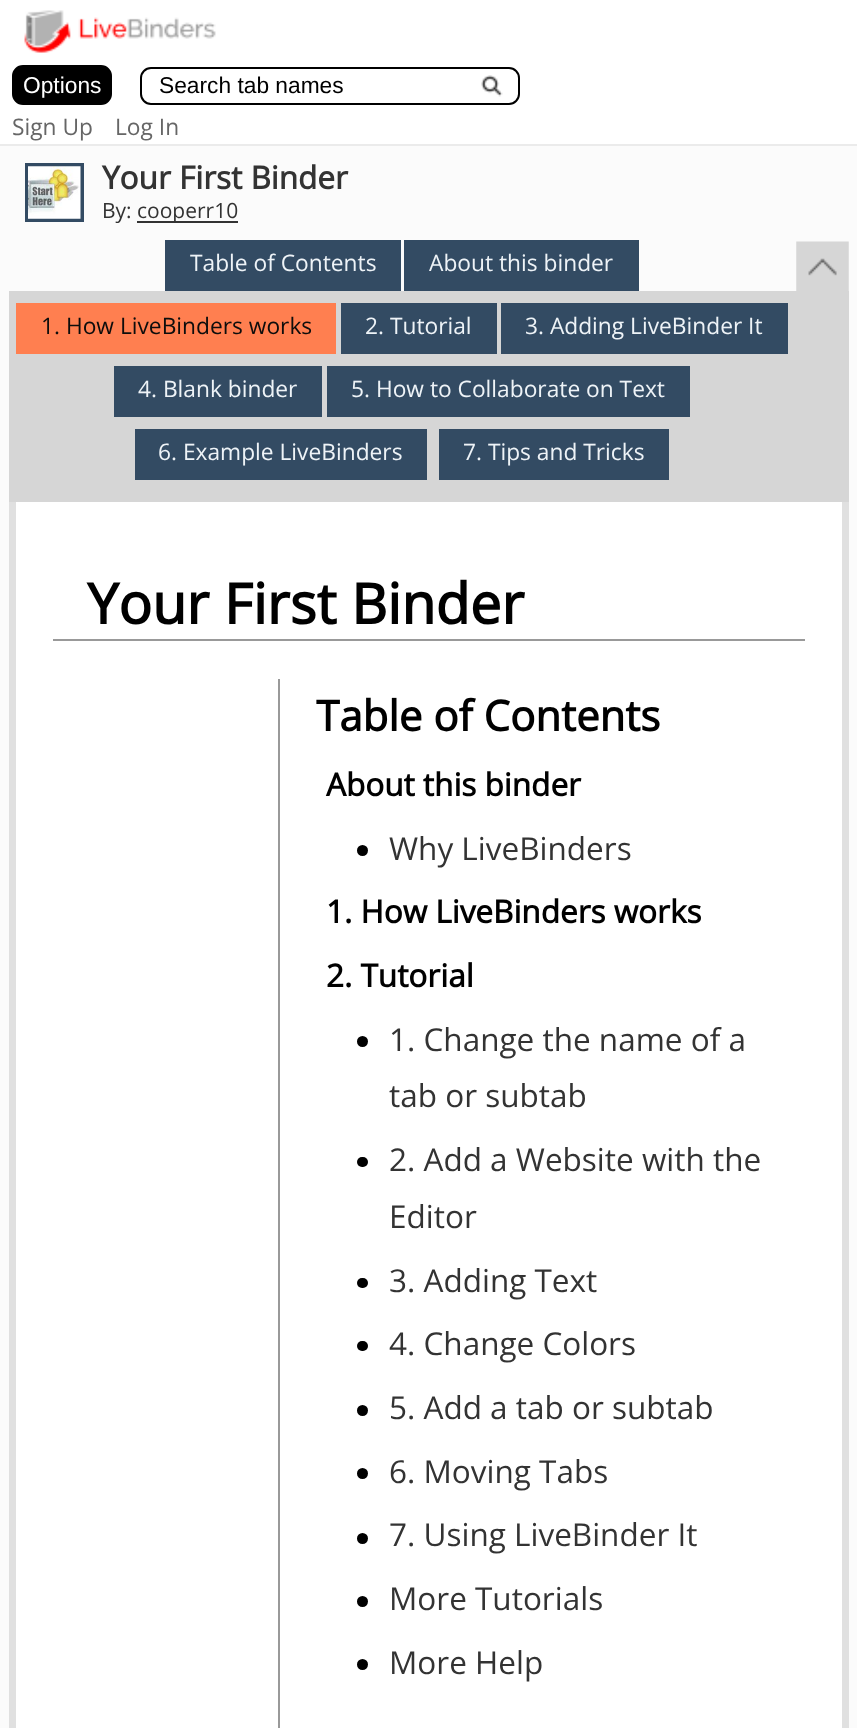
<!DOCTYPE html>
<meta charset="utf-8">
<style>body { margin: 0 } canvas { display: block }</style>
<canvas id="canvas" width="857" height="1728"></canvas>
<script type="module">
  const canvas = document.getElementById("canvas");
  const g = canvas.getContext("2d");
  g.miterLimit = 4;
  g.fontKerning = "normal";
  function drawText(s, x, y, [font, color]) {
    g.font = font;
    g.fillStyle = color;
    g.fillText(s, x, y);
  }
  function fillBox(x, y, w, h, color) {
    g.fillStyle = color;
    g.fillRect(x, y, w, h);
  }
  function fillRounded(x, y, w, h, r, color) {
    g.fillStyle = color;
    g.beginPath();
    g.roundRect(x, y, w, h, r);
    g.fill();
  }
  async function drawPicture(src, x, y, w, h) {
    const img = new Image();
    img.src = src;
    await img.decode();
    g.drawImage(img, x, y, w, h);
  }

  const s1 = ["22.75px Liberation Sans", "#FFFFFF"];
  const s2 = ["22.75px Liberation Sans", "#000000"];
  const s3 = ["22.75px Open Sans", "#666666"];
  const s4 = ["bold 31.5px Open Sans", "#333333"];
  const s5 = ["21px Open Sans", "#333333"];
  const s6 = ["22.75px Open Sans", "#EEF3F7"];
  const s7 = ["22.75px Open Sans", "#0D0D0C"];
  const s8 = ["bold 56px Open Sans", "#000000"];
  const s9 = ["bold 42px Open Sans", "#000000"];
  const s10 = ["bold 31.5px Open Sans", "#000000"];
  const s11 = ["31.5px Open Sans", "#333333"];

  fillBox(0, 0, 857, 1728, "#FBFBFB");
  fillBox(0, 0, 857, 144, "#FFFFFF");
  fillBox(0, 144, 857, 2, "#EBEBEB");
  await drawPicture("pic1.png", 24, 10, 192, 43);
  g.fillStyle = "#000000";
  g.beginPath();
  g.roundRect(13, 66, 98, 38, 10);
  g.fill();
  g.strokeStyle = "#000000";
  g.lineWidth = 2;
  g.stroke();
  drawText("Options", 23, 93, s1);
  await drawPicture("pic2.png", 481, 75, 22, 22);
  g.beginPath();
  g.roundRect(141, 68, 378, 36, 10);
  g.stroke();
  drawText("Search tab names", 159, 93, s2);
  drawText("Sign Up", 12, 135, s3);
  drawText("Log In", 115, 135, s3);
  fillBox(25, 163, 59, 59, "#334B63");
  await drawPicture("pic3.png", 28, 166, 53, 53);
  drawText("Your First Binder", 102, 189, s4);
  drawText("By:", 102, 218, s5);
  fillBox(137, 221, 101, 2, "#333333");
  drawText("cooperr10", 137, 218, s5);
  fillBox(9, 291, 840, 211, "#D6D6D6");
  fillBox(165, 240, 236, 51, "#334B63");
  drawText("Table of Contents", 190, 271, s6);
  fillBox(404, 240, 235, 51, "#334B63");
  drawText("About this binder", 429, 271, s6);
  fillBox(16, 303, 320, 51, "#FF7F50");
  drawText("1. How LiveBinders works", 41, 334, s7);
  fillBox(341, 303, 156, 51, "#334B63");
  drawText("2. Tutorial", 365, 334, s6);
  fillBox(501, 303, 287, 51, "#334B63");
  drawText("3. Adding LiveBinder It", 525, 334, s6);
  fillBox(114, 366, 208, 51, "#334B63");
  drawText("4. Blank binder", 138, 397, s6);
  fillBox(327, 366, 363, 51, "#334B63");
  drawText("5. How to Collaborate on Text", 351, 397, s6);
  fillBox(135, 429, 292, 51, "#334B63");
  drawText("6. Example LiveBinders", 158, 460, s6);
  fillBox(439, 429, 230, 51, "#334B63");
  drawText("7. Tips and Tricks", 463, 460, s6);
  await drawPicture("pic4.png", 796, 241, 53, 50);
  fillBox(16, 502, 826, 1226, "#FFFFFF");
  fillBox(842, 502, 7, 1226, "#E0E0E0");
  fillBox(9, 502, 7, 1226, "#E0E0E0");
  fillBox(53, 639, 752, 2, "#999999");
  drawText("Your First Binder", 87, 624, s8);
  fillBox(278, 679, 2, 1049, "#999999");
  drawText("Table of Contents", 316, 731, s9);
  drawText("About this binder", 326, 796, s10);
  g.beginPath();
  g.arc(362.5, 850.5, 5.5, 0, Math.PI * 2);
  g.fill();
  drawText("Why LiveBinders", 389, 860, s11);
  drawText("1. How LiveBinders works", 326, 923, s10);
  drawText("2. Tutorial", 326, 987, s10);
  g.beginPath();
  g.arc(362.5, 1041.5, 5.5, 0, Math.PI * 2);
  g.fill();
  drawText("1. Change the name of a", 389, 1051, s11);
  drawText("tab or subtab", 389, 1107, s11);
  fillRounded(357, 1157, 11, 10, 5, "#000000");
  drawText("2. Add a Website with the", 389, 1171, s11);
  drawText("Editor", 389, 1228, s11);
  fillRounded(357, 1278, 11, 10, 5, "#000000");
  drawText("3. Adding Text", 389, 1292, s11);
  fillRounded(357, 1341, 11, 10, 5, "#000000");
  drawText("4. Change Colors", 389, 1355, s11);
  g.fillStyle = "#000000";
  g.beginPath();
  g.arc(362.5, 1410.5, 5.5, 0, Math.PI * 2);
  g.fill();
  drawText("5. Add a tab or subtab", 389, 1419, s11);
  g.fillStyle = "#000000";
  g.beginPath();
  g.arc(362.5, 1473.5, 5.5, 0, Math.PI * 2);
  g.fill();
  drawText("6. Moving Tabs", 389, 1483, s11);
  g.fillStyle = "#000000";
  g.beginPath();
  g.arc(362.5, 1538.5, 5.5, 0, Math.PI * 2);
  g.fill();
  drawText("7. Using LiveBinder It", 389, 1546, s11);
  g.fillStyle = "#000000";
  g.beginPath();
  g.arc(362.5, 1601.5, 5.5, 0, Math.PI * 2);
  g.fill();
  drawText("More Tutorials", 389, 1610, s11);
  g.fillStyle = "#000000";
  g.beginPath();
  g.arc(362.5, 1664.5, 5.5, 0, Math.PI * 2);
  g.fill();
  drawText("More Help", 389, 1674, s11);
</script>
